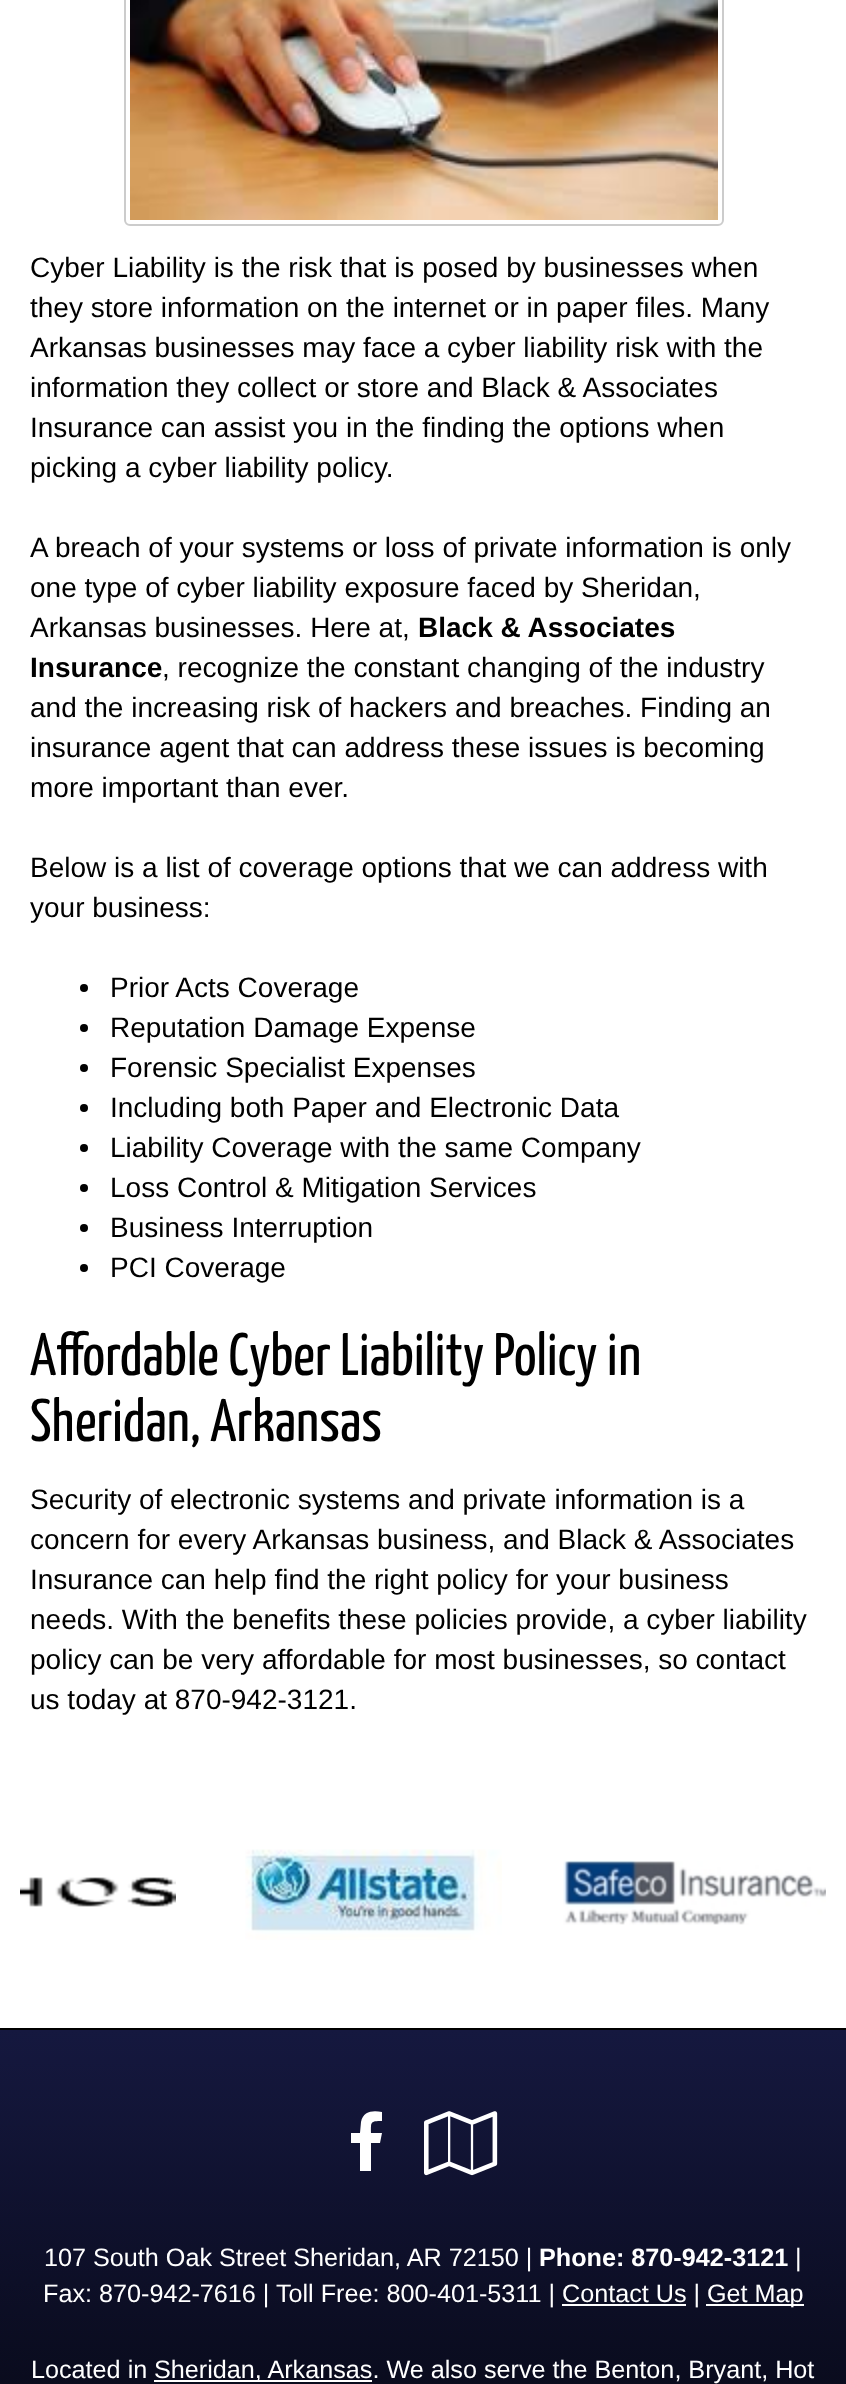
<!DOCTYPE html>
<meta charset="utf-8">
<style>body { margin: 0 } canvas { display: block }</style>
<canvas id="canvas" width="846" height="2384"></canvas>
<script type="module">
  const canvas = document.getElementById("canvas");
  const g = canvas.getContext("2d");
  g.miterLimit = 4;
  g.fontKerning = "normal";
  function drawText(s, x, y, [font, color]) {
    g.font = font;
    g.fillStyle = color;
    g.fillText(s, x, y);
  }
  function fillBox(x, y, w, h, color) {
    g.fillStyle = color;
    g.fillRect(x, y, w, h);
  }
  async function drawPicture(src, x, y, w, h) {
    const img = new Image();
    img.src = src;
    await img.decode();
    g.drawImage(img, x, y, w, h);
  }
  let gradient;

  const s1 = ["28px Liberation Sans", "#000000"];
  const s2 = ["bold 28px Liberation Sans", "#000000"];
  const s3 = ["60px Yanone Kaffeesatz", "#000000"];
  const s4 = ["25.2px Liberation Sans", "#FFFFFF"];
  const s5 = ["bold 25.2px Liberation Sans", "#FFFFFF"];

  fillBox(0, 0, 846, 2384, "#FFFFFF");
  g.beginPath();
  g.roundRect(125, -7, 598, 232, 5);
  g.strokeStyle = "#CCCCCC";
  g.lineWidth = 2;
  g.stroke();
  await drawPicture("pic1.png", 130, 0, 588, 220);
  drawText("Cyber Liability is the risk that is posed by businesses when", 30, 277, s1);
  drawText("they store information on the internet or in paper files. Many", 30, 317, s1);
  drawText("Arkansas businesses may face a cyber liability risk with the", 30, 357, s1);
  drawText("information they collect or store and Black & Associates", 30, 397, s1);
  drawText("Insurance can assist you in the finding the options when", 30, 437, s1);
  drawText("picking a cyber liability policy.", 30, 477, s1);
  drawText("A breach of your systems or loss of private information is only", 30, 557, s1);
  drawText("one type of cyber liability exposure faced by Sheridan,", 30, 597, s1);
  drawText("Arkansas businesses. Here at,", 30, 637, s1);
  drawText("Black & Associates", 418, 637, s2);
  drawText("Insurance", 30, 677, s2);
  drawText(", recognize the constant changing of the industry", 162, 677, s1);
  drawText("and the increasing risk of hackers and breaches. Finding an", 30, 717, s1);
  drawText("insurance agent that can address these issues is becoming", 30, 757, s1);
  drawText("more important than ever.", 30, 797, s1);
  drawText("Below is a list of coverage options that we can address with", 30, 877, s1);
  drawText("your business:", 30, 917, s1);
  g.beginPath();
  g.arc(84, 988, 4, 0, Math.PI * 2);
  g.fill();
  drawText("Prior Acts Coverage", 110, 997, s1);
  g.beginPath();
  g.arc(84, 1028, 4, 0, Math.PI * 2);
  g.fill();
  drawText("Reputation Damage Expense", 110, 1037, s1);
  g.beginPath();
  g.arc(84, 1068, 4, 0, Math.PI * 2);
  g.fill();
  drawText("Forensic Specialist Expenses", 110, 1077, s1);
  g.beginPath();
  g.arc(84, 1108, 4, 0, Math.PI * 2);
  g.fill();
  drawText("Including both Paper and Electronic Data", 110, 1117, s1);
  g.beginPath();
  g.arc(84, 1148, 4, 0, Math.PI * 2);
  g.fill();
  drawText("Liability Coverage with the same Company", 110, 1157, s1);
  g.beginPath();
  g.arc(84, 1188, 4, 0, Math.PI * 2);
  g.fill();
  drawText("Loss Control & Mitigation Services", 110, 1197, s1);
  g.beginPath();
  g.arc(84, 1228, 4, 0, Math.PI * 2);
  g.fill();
  drawText("Business Interruption", 110, 1237, s1);
  g.beginPath();
  g.arc(84, 1268, 4, 0, Math.PI * 2);
  g.fill();
  drawText("PCI Coverage", 110, 1277, s1);
  drawText("Affordable Cyber Liability Policy in", 30, 1375, s3);
  drawText("Sheridan, Arkansas", 30, 1441, s3);
  drawText("Security of electronic systems and private information is a", 30, 1509, s1);
  drawText("concern for every Arkansas business, and Black & Associates", 30, 1549, s1);
  drawText("Insurance can help find the right policy for your business", 30, 1589, s1);
  drawText("needs. With the benefits these policies provide, a cyber liability", 30, 1629, s1);
  drawText("policy can be very affordable for most businesses, so contact", 30, 1669, s1);
  drawText("us today at 870-942-3121.", 30, 1709, s1);
  await drawPicture("pic2.png", 20, 1877, 156, 30);
  await drawPicture("pic3.png", 245, 1849, 257, 91);
  await drawPicture("pic4.png", 563, 1860, 263, 65);
  gradient = g.createLinearGradient(423, 2030, 423, 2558);
  gradient.addColorStop(0, "#15183F");
  gradient.addColorStop(1, "#04050D");
  g.fillStyle = gradient;
  g.fillRect(0, 2030, 846, 354);
  fillBox(0, 2028, 846, 2, "#000000");
  g.fillStyle = "#FFFFFF";
  g.beginPath();
  g.moveTo(382, 2112);
  g.bezierCurveTo(373, 2110, 363, 2111, 361, 2122);
  g.lineTo(360, 2133);
  g.lineTo(351, 2133);
  g.lineTo(351, 2143);
  g.lineTo(360, 2143);
  g.lineTo(360, 2171);
  g.lineTo(371, 2171);
  g.lineTo(371, 2143);
  g.lineTo(380, 2143);
  g.lineTo(382, 2133);
  g.lineTo(371, 2133);
  g.bezierCurveTo(371, 2122, 370, 2121, 382, 2121);
  g.closePath();
  g.fill();
  await drawPicture("pic5.png", 424, 2111, 74, 65);
  drawText("107 South Oak Street Sheridan, AR 72150 |", 44, 2266, s4);
  drawText("Phone: 870-942-3121", 539, 2266, s5);
  drawText("|", 795, 2266, s4);
  drawText("Fax: 870-942-7616 | Toll Free: 800-401-5311 | Contact Us |", 43, 2302, s4);
  fillBox(706, 2304, 98, 2, "#FFFFFF");
  drawText("Get Map", 707, 2302, s4);
  fillBox(562, 2304, 124, 2, "#FFFFFF");
  drawText("Located in", 31, 2378, s4);
  fillBox(154, 2380, 218, 2, "#FFFFFF");
  drawText("Sheridan, Arkansas. We also serve the Benton, Bryant, Hot", 154, 2378, s4);
</script>
